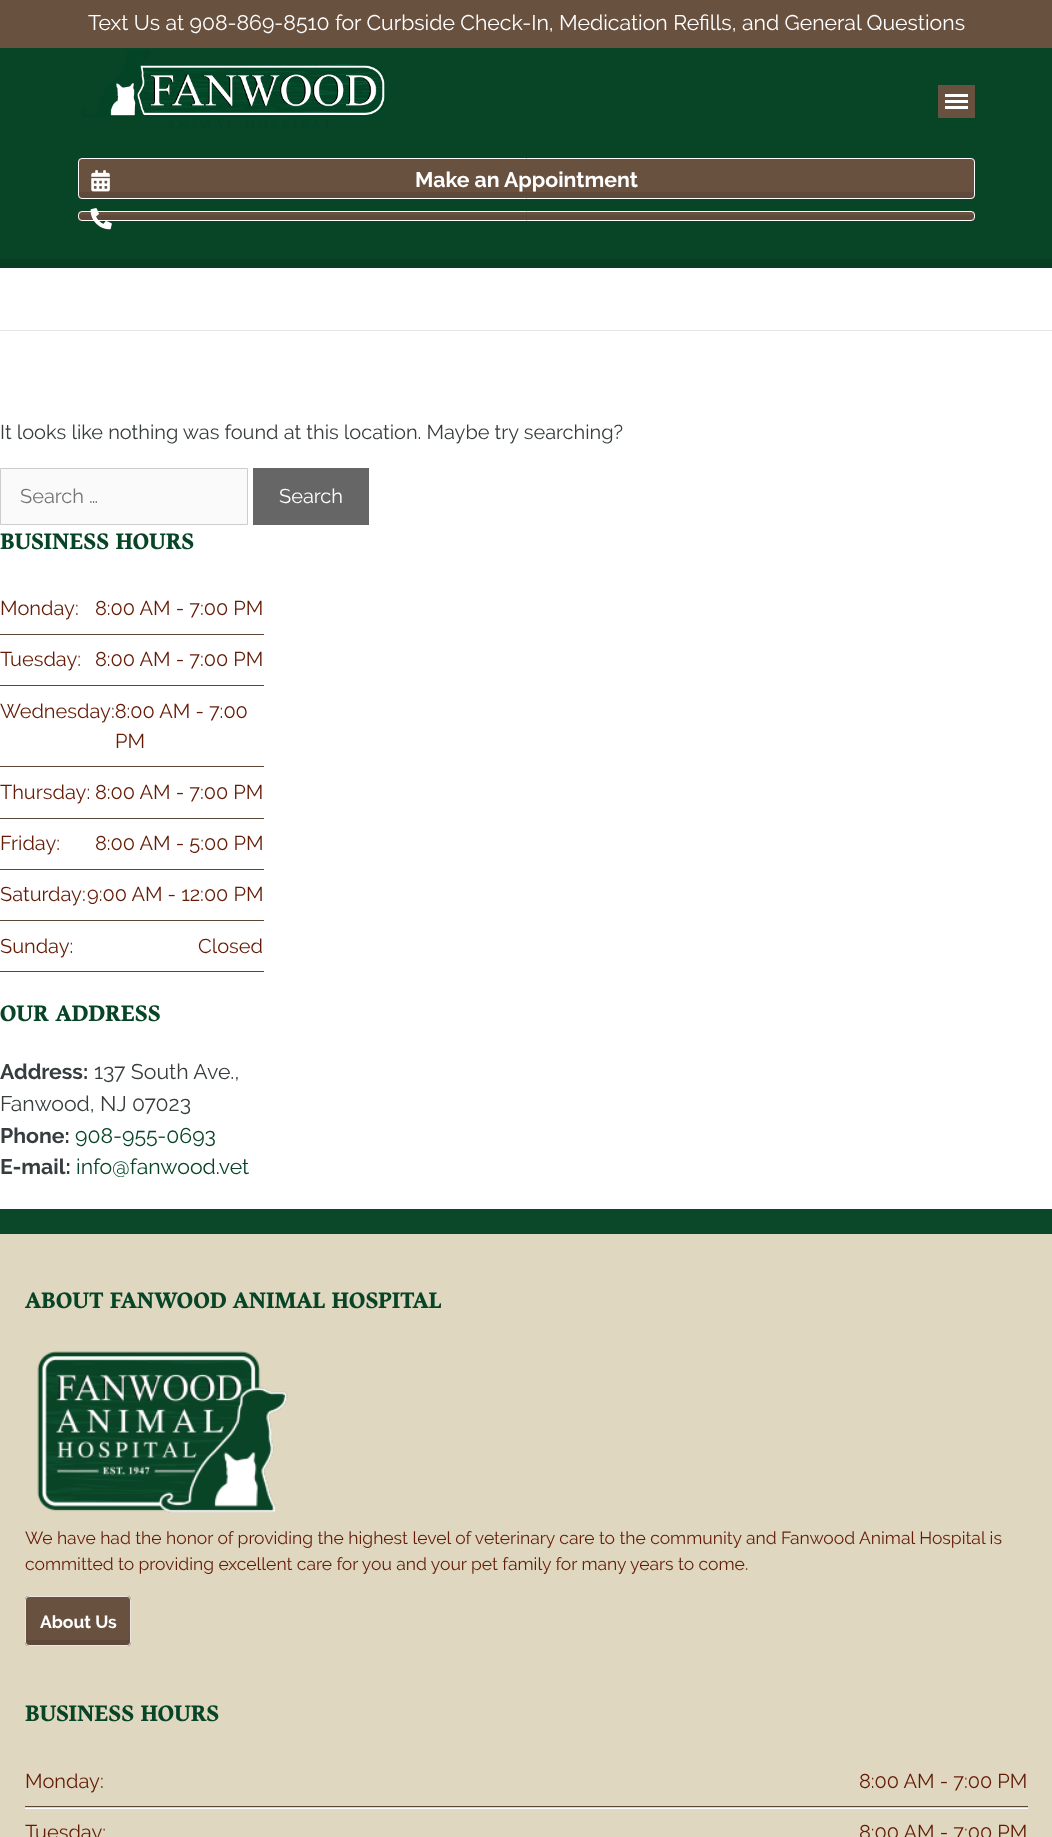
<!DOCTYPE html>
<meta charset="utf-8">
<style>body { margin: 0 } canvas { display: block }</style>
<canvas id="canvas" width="1052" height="1837"></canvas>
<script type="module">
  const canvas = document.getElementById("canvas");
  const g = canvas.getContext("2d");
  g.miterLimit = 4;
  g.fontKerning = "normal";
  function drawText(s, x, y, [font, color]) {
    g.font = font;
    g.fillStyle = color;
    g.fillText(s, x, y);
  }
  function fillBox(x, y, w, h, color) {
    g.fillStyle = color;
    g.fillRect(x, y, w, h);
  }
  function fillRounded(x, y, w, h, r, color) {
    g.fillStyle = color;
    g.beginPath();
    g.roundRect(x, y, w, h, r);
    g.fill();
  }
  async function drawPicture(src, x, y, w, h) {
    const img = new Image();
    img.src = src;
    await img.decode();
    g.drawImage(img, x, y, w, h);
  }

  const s1 = ["21.25px Raleway", "#FFFFFF"];
  const s2 = ["bold 21.25px Raleway", "#FFFFFF"];
  const s3 = ["20px Raleway", "#373D3F"];
  const s4 = ["20px Raleway", "#757575"];
  const s5 = ["20px Raleway", "#FFFFFF"];
  const s6 = ["800 22.5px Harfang", "#084527"];
  const s7 = ["20px Raleway", "#641B06"];
  const s8 = ["bold 21.25px Raleway", "#373D3F"];
  const s9 = ["21.25px Raleway", "#373D3F"];
  const s10 = ["21.25px Raleway", "#084527"];
  const s11 = ["17.5px Raleway", "#641B06"];
  const s12 = ["bold 17.5px Raleway", "#FFFFFF"];

  fillBox(0, 0, 1052, 1837, "#FFFFFF");
  fillBox(0, 48, 1052, 211, "#084527");
  fillBox(0, 259, 1052, 9, "#073E23");
  fillBox(0, 0, 1052, 48, "#695140");
  drawText("Text Us at 908-869-8510 for Curbside Check-In, Medication Refills, and General Questions", 88, 30, s1);
  await drawPicture("pic1.png", 81, 49, 305, 80);
  fillBox(938, 85, 37, 33, "#695140");
  fillBox(945, 100, 23, 3, "#FFFFFF");
  fillBox(945, 94, 23, 3, "#FFFFFF");
  fillBox(945, 106, 23, 3, "#FFFFFF");
  fillRounded(78, 158, 897, 41, 4, "#695140");
  g.fillStyle = "#5F493A";
  g.beginPath();
  g.moveTo(79, 190);
  g.lineTo(79, 196);
  g.bezierCurveTo(79, 197, 80, 198, 82, 198);
  g.lineTo(972, 198);
  g.bezierCurveTo(973, 198, 974, 197, 974, 196);
  g.lineTo(974, 190);
  g.bezierCurveTo(974, 191, 973, 192, 971, 192);
  g.lineTo(81, 192);
  g.bezierCurveTo(80, 192, 79, 191, 79, 190);
  g.closePath();
  g.fill();
  g.beginPath();
  g.roundRect(78.5, 158.5, 896, 40, 3.5);
  g.strokeStyle = "#FFFFFF";
  g.stroke();
  await drawPicture("pic2.png", 91, 170, 19, 22);
  drawText("Make an Appointment", 415, 187, s2);
  fillRounded(78, 211, 897, 10, 4, "#695140");
  g.fillStyle = "#5F493A";
  g.beginPath();
  g.moveTo(79, 214);
  g.bezierCurveTo(78, 216, 79, 220, 82, 220);
  g.lineTo(972, 220);
  g.bezierCurveTo(974, 220, 975, 216, 973, 214);
  g.lineTo(971, 215);
  g.lineTo(81, 215);
  g.closePath();
  g.fill();
  g.beginPath();
  g.roundRect(78.5, 211.5, 896, 9, 3.5);
  g.stroke();
  await drawPicture("pic3.png", 90, 208, 22, 22);
  fillBox(0, 330, 1052, 1, "#E3E5E7");
  drawText("It looks like nothing was found at this location. Maybe try searching?", 0, 439, s3);
  g.fillStyle = "#FAFAFA";
  g.beginPath();
  g.rect(0.5, 468.5, 247, 56);
  g.fill();
  g.strokeStyle = "#CCCCCC";
  g.stroke();
  drawText("Search …", 20, 503, s4);
  fillBox(253, 468, 116, 57, "#666666");
  drawText("Search", 279, 503, s5);
  drawText("BUSINESS HOURS", 0, 549, s6);
  fillBox(0, 634, 264, 1, "#5D4635");
  drawText("Monday:", 0, 615, s7);
  drawText("8:00 AM - 7:00 PM", 95, 615, s7);
  fillBox(0, 685, 264, 1, "#5D4635");
  drawText("Tuesday:", 0, 666, s7);
  drawText("8:00 AM - 7:00 PM", 95, 666, s7);
  fillBox(0, 766, 264, 1, "#5D4635");
  drawText("Wednesday:8:00 AM - 7:00", 0, 718, s7);
  drawText("PM", 115, 748, s7);
  fillBox(0, 818, 264, 1, "#5D4635");
  drawText("Thursday:", 0, 799, s7);
  drawText("8:00 AM - 7:00 PM", 95, 799, s7);
  fillBox(0, 869, 264, 1, "#5D4635");
  drawText("Friday:", 0, 850, s7);
  drawText("8:00 AM - 5:00 PM", 95, 850, s7);
  fillBox(0, 920, 264, 1, "#5D4635");
  drawText("Saturday:", 0, 901, s7);
  drawText("9:00 AM - 12:00 PM", 87, 901, s7);
  fillBox(0, 971, 264, 1, "#5D4635");
  drawText("Sunday:", 0, 953, s7);
  drawText("Closed", 198, 953, s7);
  drawText("OUR ADDRESS", 0, 1021, s6);
  drawText("Address:", 0, 1079, s8);
  drawText("137 South Ave.,", 94, 1079, s9);
  drawText("Fanwood, NJ 07023", 0, 1111, s9);
  drawText("Phone:", 0, 1143, s8);
  drawText("908-955-0693", 75, 1143, s10);
  drawText("E-mail:", 0, 1174, s8);
  drawText("info@fanwood.vet", 76, 1174, s10);
  fillBox(0, 1234, 1052, 603, "#DFD7BF");
  fillBox(0, 1209, 1052, 25, "#0B4829");
  drawText("ABOUT FANWOOD ANIMAL HOSPITAL", 25, 1308, s6);
  await drawPicture("pic4.png", 37, 1351, 251, 162);
  drawText("We have had the honor of providing the highest level of veterinary care to the community and Fanwood Animal Hospital is", 25, 1544, s11);
  drawText("committed to providing excellent care for you and your pet family for many years to come.", 25, 1570, s11);
  fillRounded(25, 1596, 106, 50, 4, "#695140");
  g.fillStyle = "#5F493A";
  g.beginPath();
  g.moveTo(26, 1638);
  g.lineTo(26, 1642);
  g.bezierCurveTo(26, 1644, 27, 1645, 28, 1645);
  g.lineTo(128, 1645);
  g.bezierCurveTo(129, 1645, 130, 1644, 130, 1642);
  g.lineTo(130, 1638);
  g.bezierCurveTo(130, 1639, 129, 1640, 128, 1640);
  g.lineTo(29, 1640);
  g.bezierCurveTo(27, 1640, 26, 1639, 26, 1638);
  g.closePath();
  g.fill();
  g.beginPath();
  g.roundRect(25.5, 1596.5, 105, 49, 3.5);
  g.strokeStyle = "rgba(255, 255, 255, 0.85)";
  g.stroke();
  drawText("About Us", 40, 1628, s12);
  drawText("BUSINESS HOURS", 25, 1721, s6);
  g.fillStyle = "#FFFFFF";
  g.beginPath();
  g.moveTo(25, 1808);
  g.lineTo(25, 1809);
  g.lineTo(1028, 1809);
  g.lineTo(1028, 1758);
  g.lineTo(1028, 1808);
  g.closePath();
  g.fill();
  fillBox(25, 1806, 1003, 1, "#5D4635");
  drawText("Monday:", 25, 1788, s7);
  drawText("8:00 AM - 7:00 PM", 859, 1788, s7);
  drawText("Tuesday:", 25, 1839, s7);
  drawText("8:00 AM - 7:00 PM", 859, 1839, s7);
</script>
